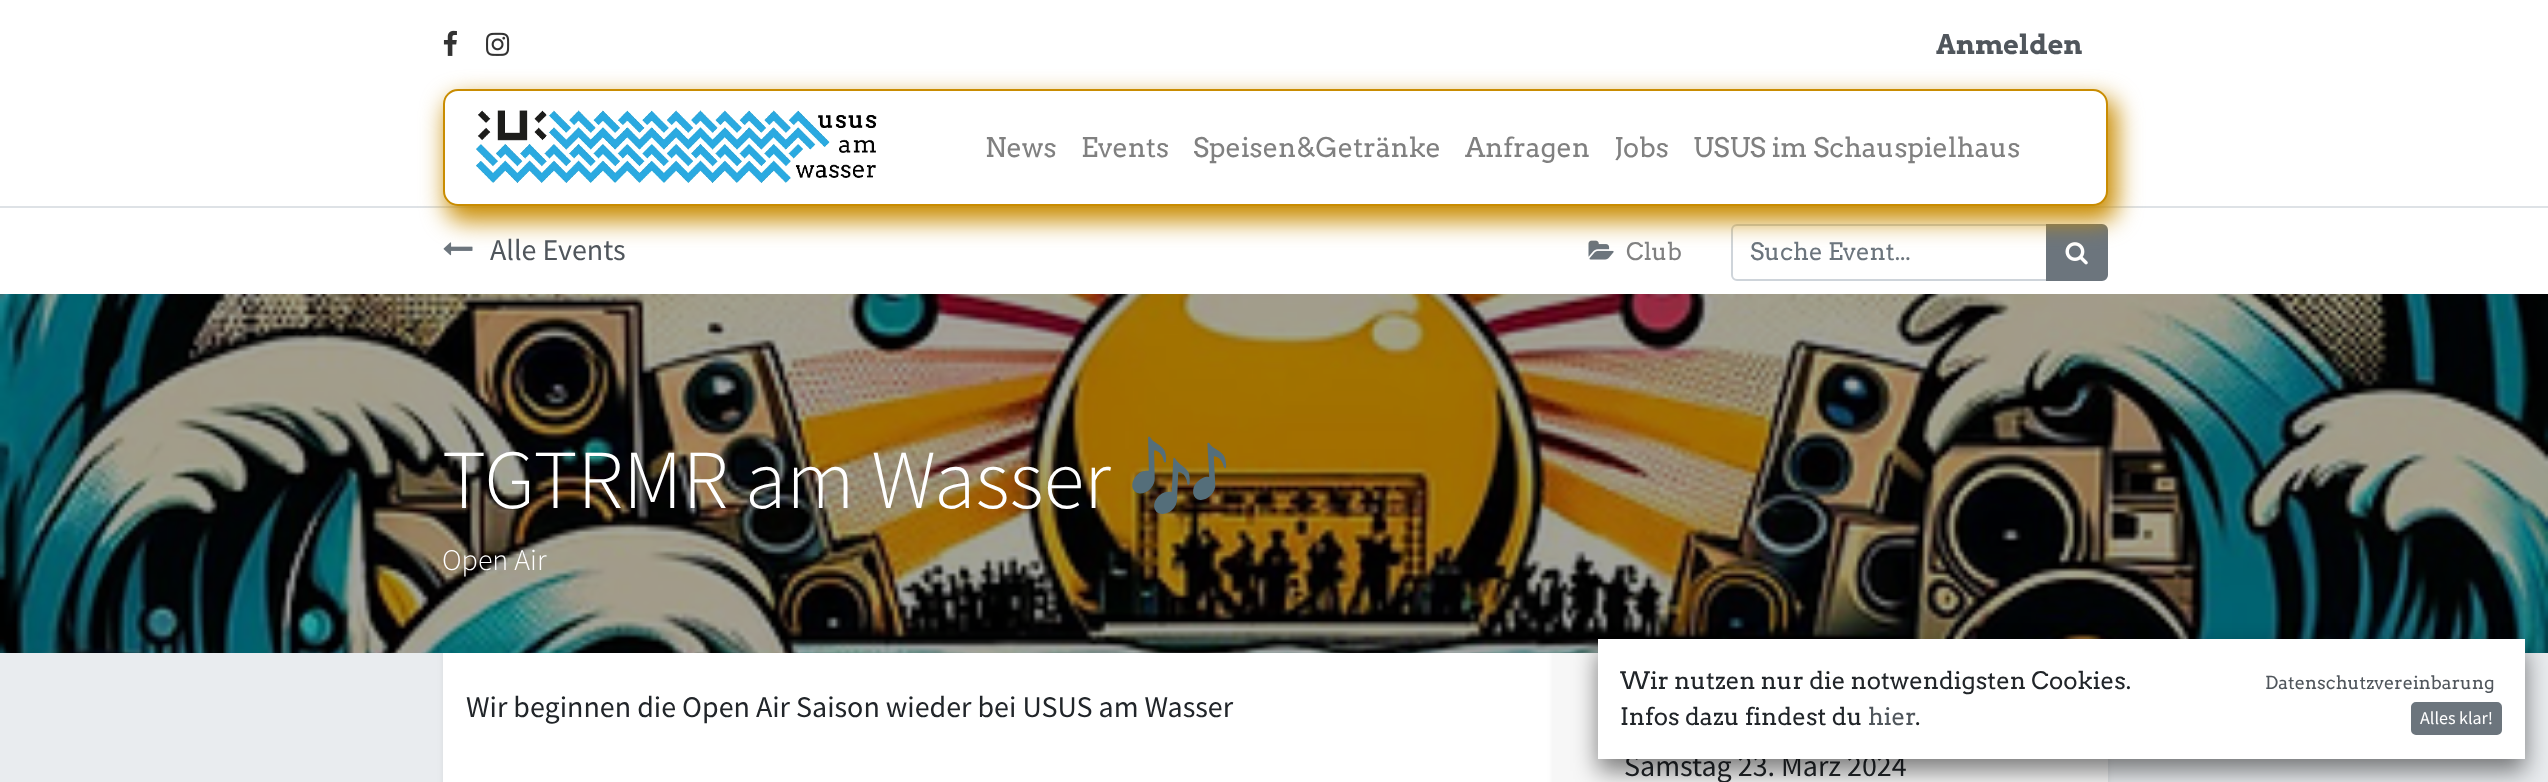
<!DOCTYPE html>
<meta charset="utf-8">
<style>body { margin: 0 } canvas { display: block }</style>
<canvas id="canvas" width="2548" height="782"></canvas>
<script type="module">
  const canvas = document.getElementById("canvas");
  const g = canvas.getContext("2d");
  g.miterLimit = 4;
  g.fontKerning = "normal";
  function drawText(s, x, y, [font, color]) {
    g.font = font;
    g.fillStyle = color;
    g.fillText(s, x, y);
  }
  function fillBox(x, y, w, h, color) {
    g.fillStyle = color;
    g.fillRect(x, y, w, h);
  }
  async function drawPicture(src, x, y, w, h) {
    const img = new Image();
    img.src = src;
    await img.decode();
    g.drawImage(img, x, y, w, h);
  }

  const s1 = ["bold 27px Arvo", "#50565C"];
  const s2 = ["27px Arvo", "#808080"];
  const s3 = ["30px Source Sans Pro", "#50565C"];
  const s4 = ["24px Arvo", "#808080"];
  const s5 = ["24px Arvo", "#6C757D"];
  const s6 = ["300 84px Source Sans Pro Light", "#FFFFFF"];
  const s7 = ["84px Noto Color Emoji", "#FFFFFF"];
  const s8 = ["300 30px Source Sans Pro Light", "#FFFFFF"];
  const s9 = ["30px Source Sans Pro", "#212529"];
  const s10 = ["24px Arvo", "#212529"];
  const s11 = ["24px Arvo", "#50565C"];
  const s12 = ["18px Arvo", "#50565C"];
  const s13 = ["18px Source Sans Pro", "#FFFFFF"];

  fillBox(0, 0, 2548, 782, "#FFFFFF");
  await drawPicture("pic1.png", 443, 30, 14, 26);
  await drawPicture("pic2.png", 486, 32, 24, 24);
  drawText("Anmelden", 1936, 54, s1);
  fillBox(0, 206, 2548, 2, "#DEE2E6");
  await drawPicture("pic4.png", 443, 242, 30, 14);
  await drawPicture("pic5.png", 1588, 240, 26, 20);
  g.beginPath();
  g.roundRect(1732, 225, 315, 55, [5, 0, 0, 5]);
  g.strokeStyle = "#CED4DA";
  g.lineWidth = 2;
  g.stroke();
  g.fillStyle = "#6C757D";
  g.beginPath();
  g.roundRect(2047, 225, 60, 55, [0, 5, 5, 0]);
  g.fill();
  g.strokeStyle = "#6C757D";
  g.stroke();
  await drawPicture("pic6.png", 2065, 242, 23, 23);
  g.fillStyle = "#C98C01";
  g.filter = "blur(12px)";
  g.beginPath();
  g.roundRect(446, 98, 1671, 123, 18);
  g.fill();
  g.filter = "none";
  g.fillStyle = "#FFFFFF";
  g.beginPath();
  g.roundRect(444, 90, 1663, 115, 14);
  g.fill();
  g.strokeStyle = "#C98C01";
  g.stroke();
  await drawPicture("pic3.png", 476, 110, 401, 73);
  drawText("News", 985, 157, s2);
  drawText("Events", 1081, 157, s2);
  drawText("Speisen&Getränke", 1193, 157, s2);
  drawText("Anfragen", 1465, 157, s2);
  drawText("Jobs", 1614, 157, s2);
  drawText("USUS im Schauspielhaus", 1693, 157, s2);
  drawText("Alle Events", 490, 260, s3);
  drawText("Club", 1626, 260, s4);
  drawText("Suche Event...", 1750, 260, s5);
  await drawPicture("pic7.png", 0, 294, 2548, 359);
  drawText("TGTRMR am Wasser", 442, 508, s6);
  drawText("🎶", 1127, 508, s7);
  drawText("Open Air", 442, 570, s8);
  fillBox(0, 653, 2548, 129, "#E9ECEF");
  g.save();
  g.beginPath();
  g.rect(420, 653, 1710, 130);
  g.clip();
  g.fillStyle = "rgba(0, 0, 0, 0.07)";
  g.filter = "blur(3px)";
  g.beginPath();
  g.rect(443, 620, 1110, 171);
  g.fill();
  g.filter = "none";
  g.restore();
  fillBox(443, 653, 1110, 129, "#FFFFFF");
  drawText("Wir beginnen die Open Air Saison wieder bei USUS am Wasser", 466, 717, s9);
  g.save();
  g.beginPath();
  g.rect(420, 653, 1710, 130);
  g.clip();
  g.fillStyle = "rgba(0, 0, 0, 0.07)";
  g.filter = "blur(3px)";
  g.beginPath();
  g.rect(1553, 620, 555, 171);
  g.fill();
  g.filter = "none";
  g.restore();
  fillBox(1553, 653, 555, 129, "#F7F7F7");
  drawText("Samstag 23. März 2024", 1624, 776, s9);
  g.fillStyle = "rgba(0, 0, 0, 0.5)";
  g.filter = "blur(12px)";
  g.beginPath();
  g.rect(1598, 651, 927, 120);
  g.fill();
  g.filter = "none";
  fillBox(1598, 639, 927, 120, "#FFFFFF");
  drawText("Wir nutzen nur die notwendigsten Cookies.", 1620, 689, s10);
  drawText("Infos dazu findest du", 1620, 725, s10);
  drawText("hier", 1868, 725, s11);
  drawText(".", 1915, 725, s10);
  drawText("Datenschutzvereinbarung", 2265, 689, s12);
  g.fillStyle = "#6C757D";
  g.beginPath();
  g.roundRect(2412, 703, 89, 31, 4);
  g.fill();
  g.strokeStyle = "#6C757D";
  g.stroke();
  drawText("Alles klar!", 2420, 724, s13);
</script>
